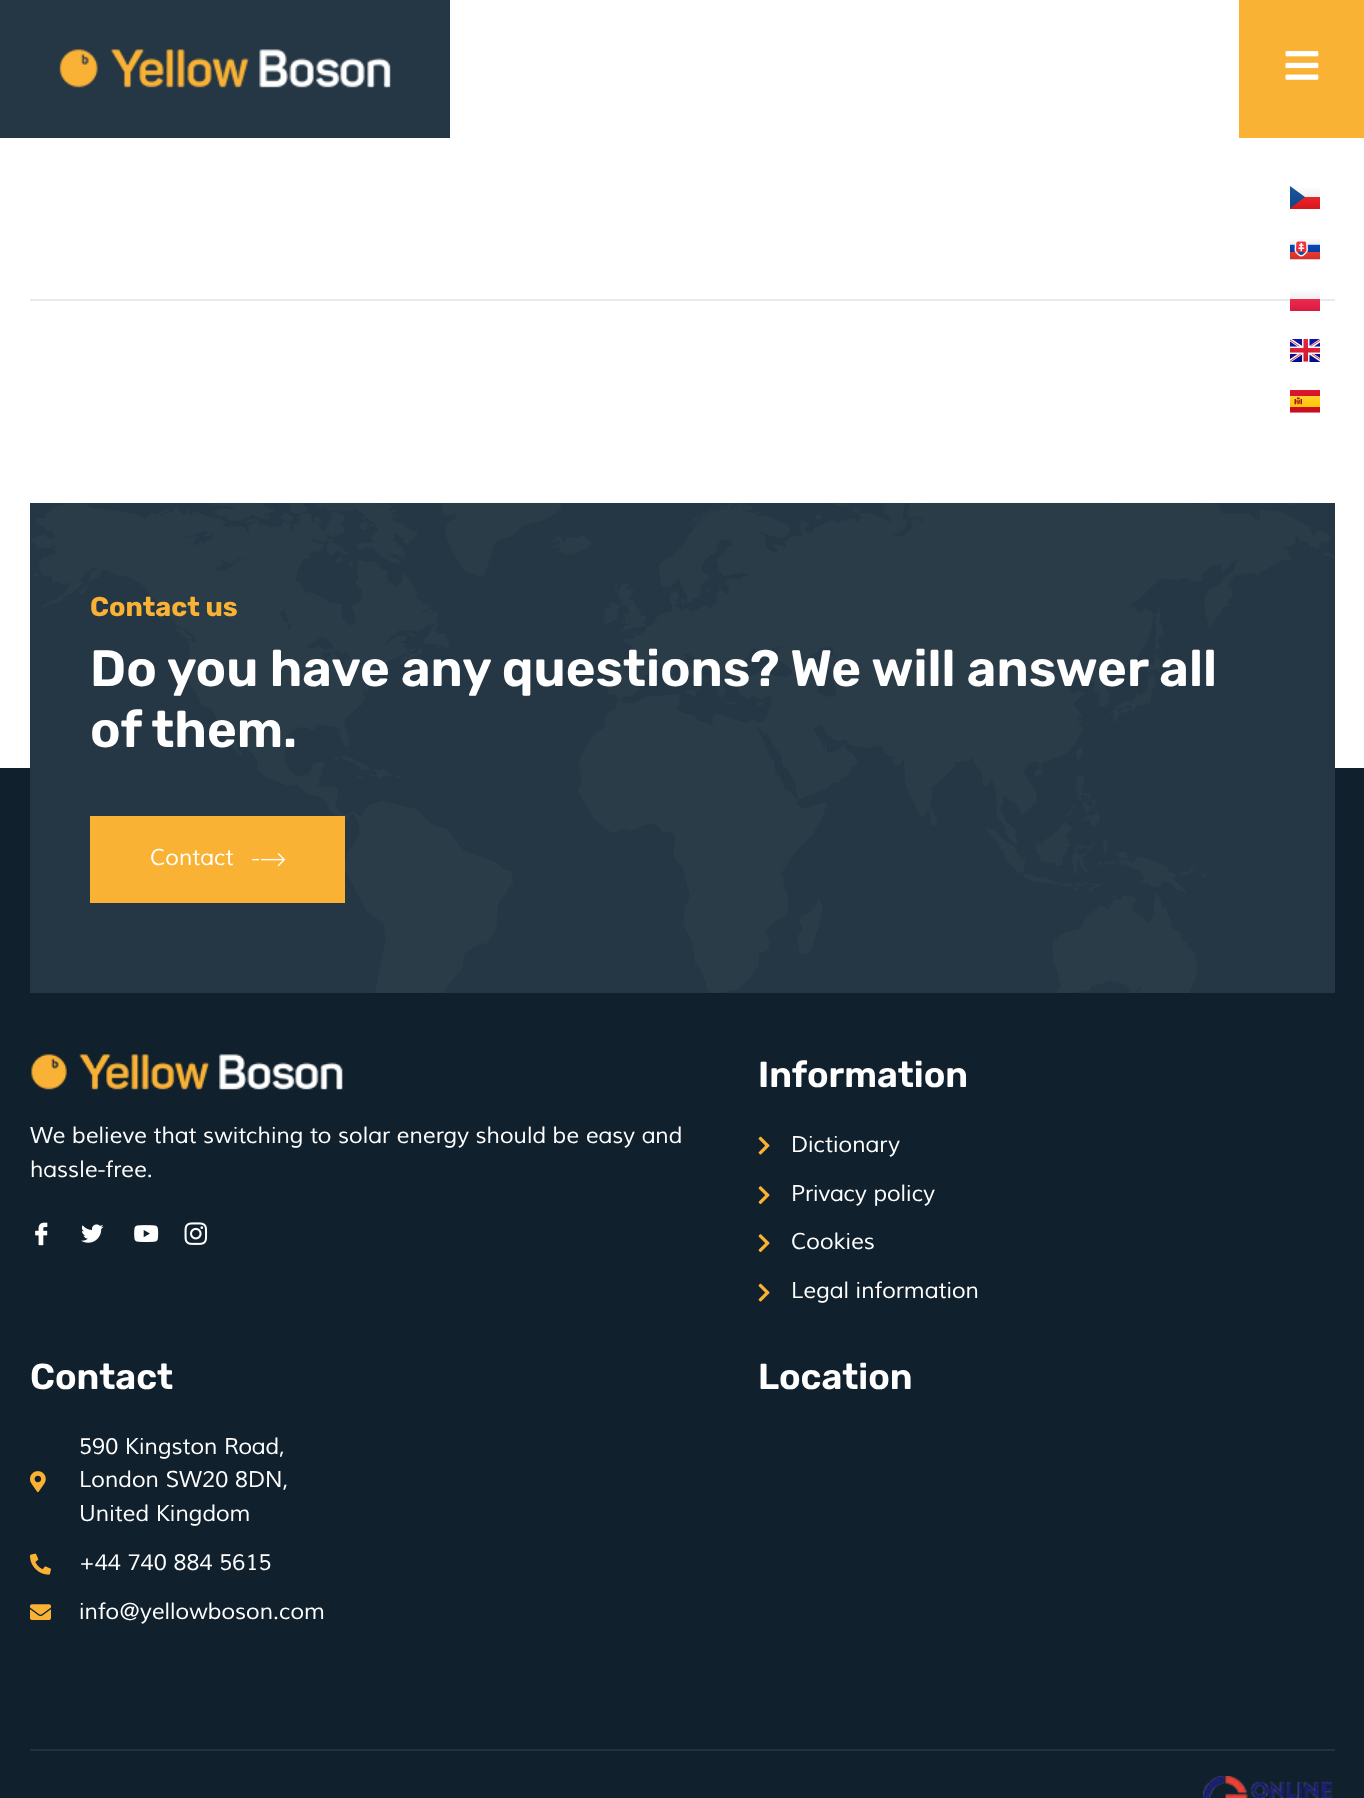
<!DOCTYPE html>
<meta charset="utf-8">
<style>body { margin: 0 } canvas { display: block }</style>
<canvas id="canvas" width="1364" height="1798"></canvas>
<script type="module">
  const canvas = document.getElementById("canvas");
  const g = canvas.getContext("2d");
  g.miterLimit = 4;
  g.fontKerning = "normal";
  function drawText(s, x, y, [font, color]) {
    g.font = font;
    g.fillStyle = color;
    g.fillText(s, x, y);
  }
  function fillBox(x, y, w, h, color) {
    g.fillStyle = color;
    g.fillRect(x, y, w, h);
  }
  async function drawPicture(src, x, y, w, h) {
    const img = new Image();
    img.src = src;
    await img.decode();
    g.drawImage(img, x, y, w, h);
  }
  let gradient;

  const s1 = ["bold 27px Rubik", "#F9B233"];
  const s2 = ["600 51px Rubik", "#FFFFFF"];
  const s3 = ["italic 22.5px Muli", "#FFFFFF"];
  const s4 = ["600 36px Rubik", "#FFFFFF"];

  fillBox(0, 0, 1364, 1798, "#FFFFFF");
  fillBox(0, 0, 450, 138, "#253745");
  await drawPicture("pic1.png", 59, 49, 332, 39);
  fillBox(1239, 0, 125, 138, "#F9B233");
  await drawPicture("pic2.png", 1285, 51, 34, 29);
  gradient = g.createLinearGradient(1306, 186, 1306, 197);
  gradient.addColorStop(0, "#FFFFFF");
  gradient.addColorStop(1, "#F0F0F0");
  g.fillStyle = gradient;
  g.fillRect(1290, 188, 30, 9);
  gradient = g.createLinearGradient(1306, 197, 1306, 209);
  gradient.addColorStop(0, "#E8252A");
  gradient.addColorStop(1, "#D7151A");
  g.fillStyle = gradient;
  g.fillRect(1290, 197, 30, 12);
  gradient = g.createLinearGradient(1298, 186, 1298, 209);
  gradient.addColorStop(0, "#17579E");
  gradient.addColorStop(1, "#10457F");
  g.fillStyle = gradient;
  g.beginPath();
  g.moveTo(1290, 186);
  g.lineTo(1305, 197);
  g.lineTo(1290, 208.5);
  g.closePath();
  g.fill("evenodd");
  await drawPicture("pic3.png", 1290, 239, 30, 21);
  gradient = g.createLinearGradient(1306, 288, 1306, 299);
  gradient.addColorStop(0, "#FFFFFF");
  gradient.addColorStop(1, "#F0F0F0");
  g.fillStyle = gradient;
  g.fillRect(1290, 290, 30, 9);
  fillBox(30, 299, 1305, 2, "#EAEAEA");
  gradient = g.createLinearGradient(1306, 299, 1306, 311);
  gradient.addColorStop(0, "#EB2A50");
  gradient.addColorStop(1, "#DA1B40");
  g.fillStyle = gradient;
  g.fillRect(1290, 299, 30, 12);
  await drawPicture("pic4.png", 1290, 339, 30, 23);
  await drawPicture("pic5.png", 1290, 390, 30, 23);
  fillBox(0, 768, 1364, 1030, "#10202D");
  fillBox(30, 503, 1305, 490, "#253745");
  await drawPicture("pic6.png", 31, 502, 1303, 491);
  drawText("Contact us", 90, 616, s1);
  drawText("Do you have any questions? We will answer all", 90, 686, s2);
  drawText("of them.", 90, 747, s2);
  fillBox(90, 816, 255, 87, "#F9B233");
  drawText("Contact", 150, 865, s3);
  await drawPicture("pic7.png", 252, 853, 33, 14);
  await drawPicture("pic8.png", 31, 1054, 312, 36);
  drawText("We believe that switching to solar energy should be easy and", 30, 1143, s3);
  drawText("hassle-free.", 30, 1177, s3);
  await drawPicture("pic9.png", 35, 1222, 13, 24);
  await drawPicture("pic10.png", 81, 1224, 23, 19);
  await drawPicture("pic11.png", 134, 1225, 25, 17);
  await drawPicture("pic12.png", 184, 1222, 24, 23);
  drawText("Information", 758, 1087, s4);
  await drawPicture("pic13.png", 758, 1136, 12, 19);
  drawText("Dictionary", 791, 1152, s3);
  await drawPicture("pic14.png", 758, 1186, 12, 19);
  drawText("Privacy policy", 791, 1201, s3);
  await drawPicture("pic14.png", 758, 1234, 12, 19);
  drawText("Cookies", 791, 1249, s3);
  await drawPicture("pic13.png", 758, 1283, 12, 19);
  drawText("Legal information", 791, 1298, s3);
  drawText("Contact", 30, 1389, s4);
  await drawPicture("pic15.png", 30, 1471, 16, 22);
  drawText("590 Kingston Road,", 79, 1454, s3);
  drawText("London SW20 8DN,", 79, 1487, s3);
  drawText("United Kingdom", 79, 1521, s3);
  await drawPicture("pic16.png", 30, 1553, 21, 22);
  drawText("+44 740 884 5615", 79, 1570, s3);
  await drawPicture("pic17.png", 30, 1604, 21, 16);
  drawText("info@yellowboson.com", 79, 1619, s3);
  drawText("Location", 758, 1389, s4);
  fillBox(30, 1749, 1305, 2, "#24323E");
  await drawPicture("pic18.png", 1203, 1776, 130, 22);
</script>
